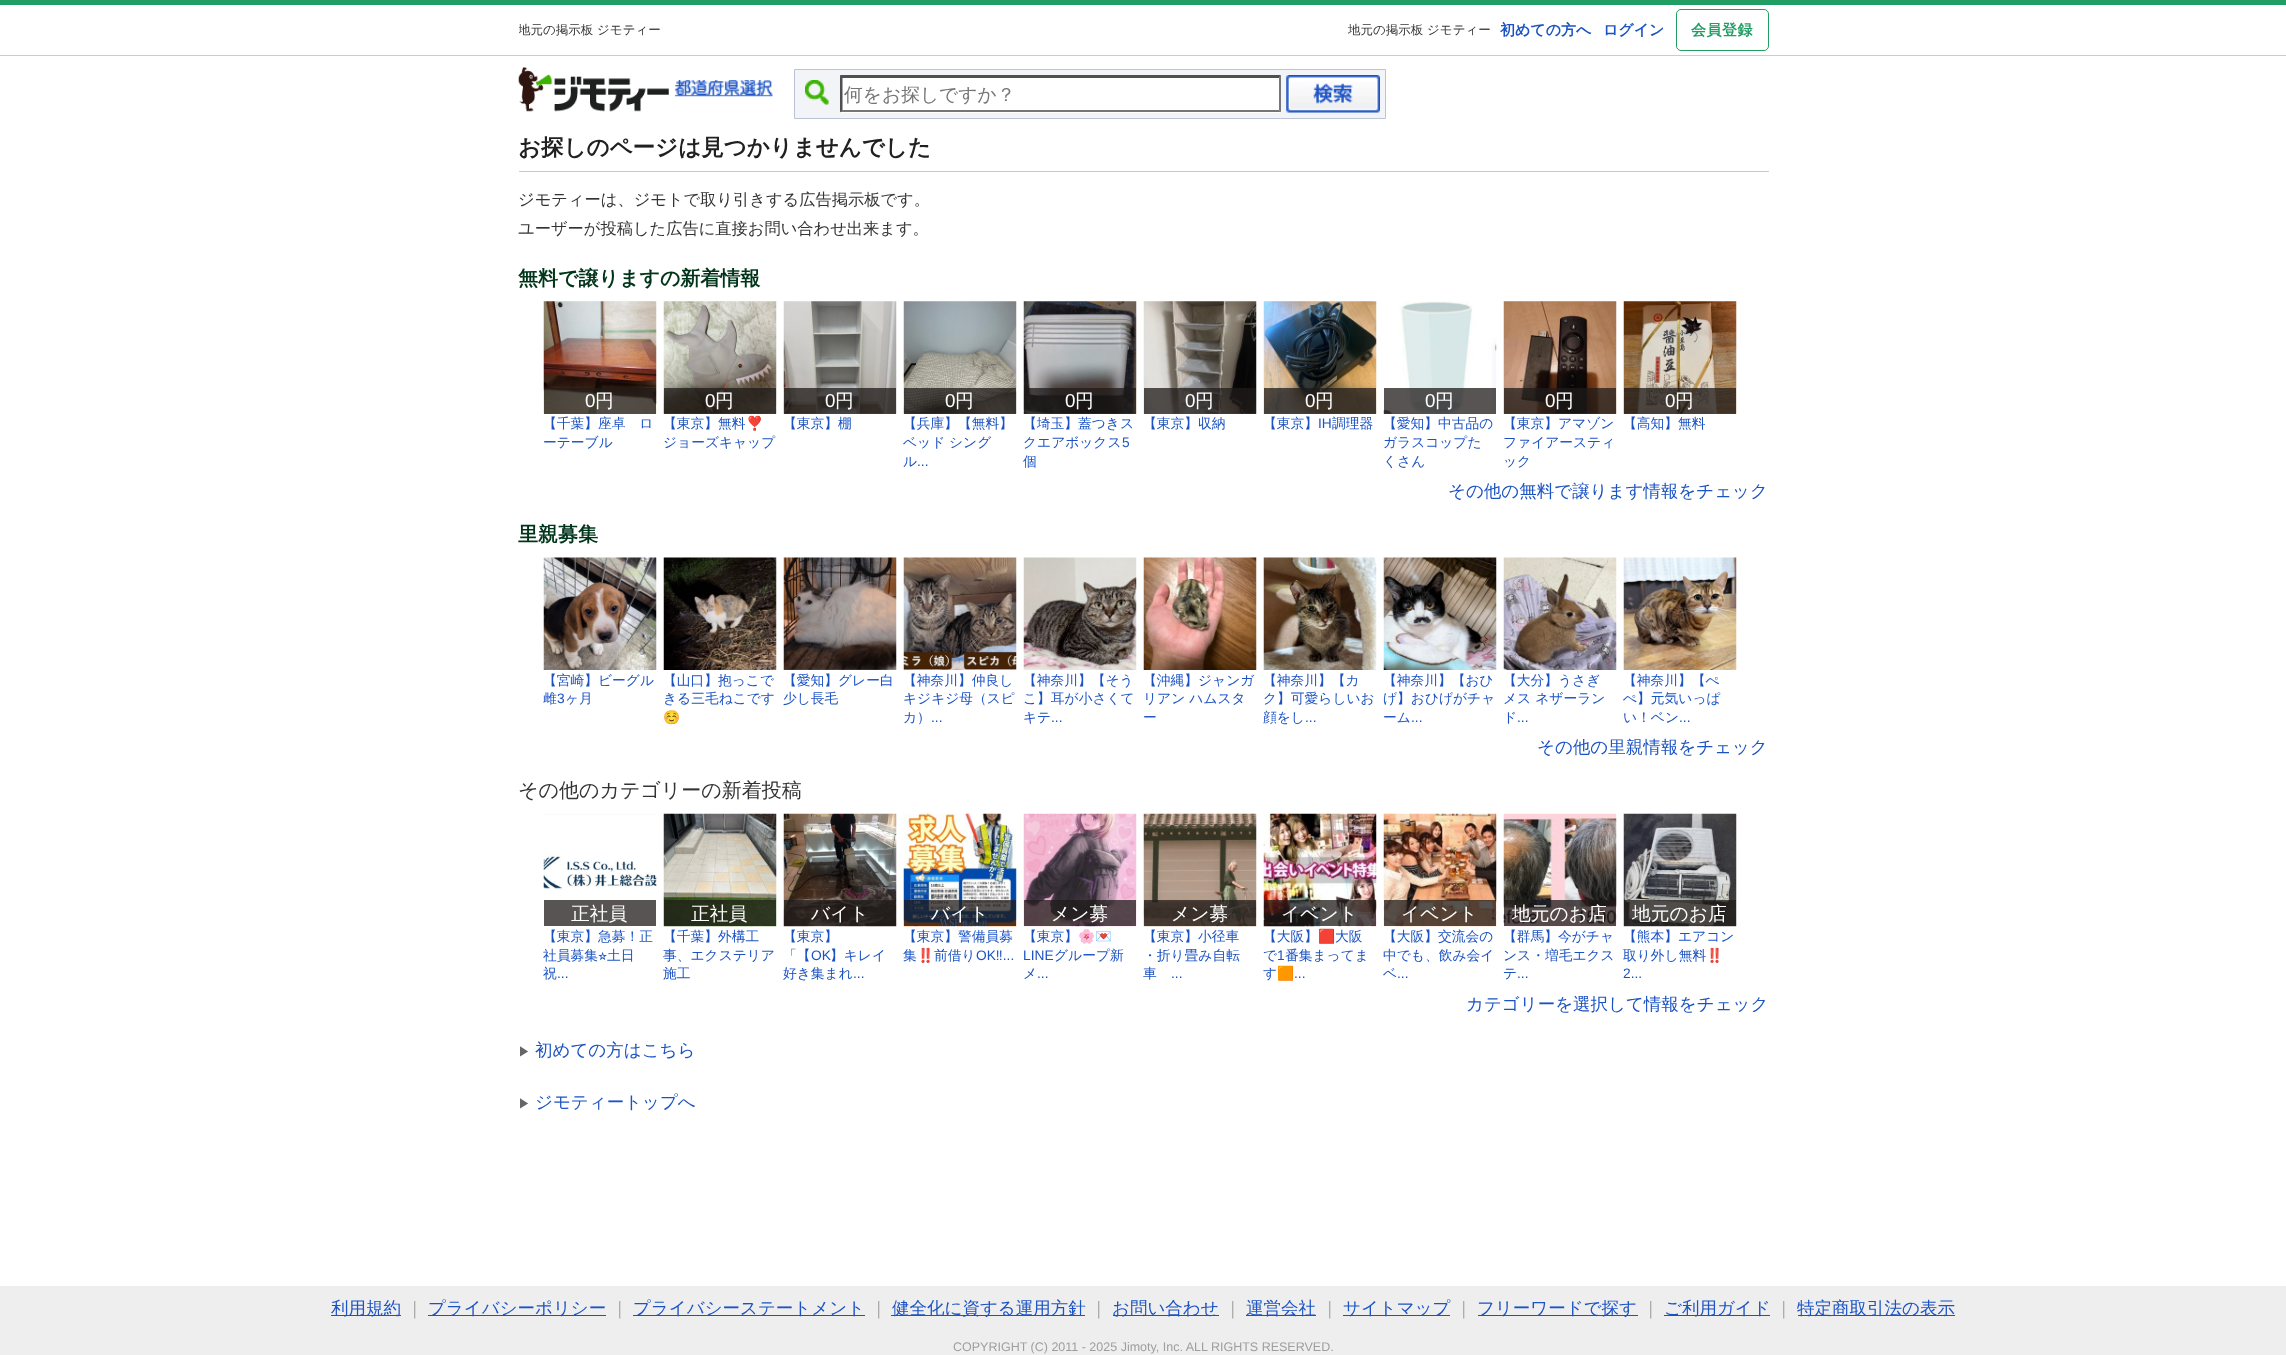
<!DOCTYPE html>
<meta charset="utf-8">
<style>body { margin: 0 } canvas { display: block }</style>
<canvas id="canvas" width="2286" height="1355"></canvas>
<script type="module">
  const canvas = document.getElementById("canvas");
  const g = canvas.getContext("2d");
  g.miterLimit = 4;
  g.fontKerning = "normal";
  function drawText(s, x, y, [font, color]) {
    g.font = font;
    g.fillStyle = color;
    g.fillText(s, x, y);
  }
  function fillBox(x, y, w, h, color) {
    g.fillStyle = color;
    g.fillRect(x, y, w, h);
  }
  async function drawPicture(src, x, y, w, h) {
    const img = new Image();
    img.src = src;
    await img.decode();
    g.drawImage(img, x, y, w, h);
  }

  const s1 = ["500 12.5px WenQuanYi Zen Hei", "#333333"];
  const s2 = ["bold 15px WenQuanYi Zen Hei", "#1C53C3"];
  const s3 = ["bold 15px WenQuanYi Zen Hei", "#219E62"];
  const s4 = ["500 18.75px WenQuanYi Zen Hei", "#757575"];
  const s5 = ["bold 22.5px WenQuanYi Zen Hei", "#202020"];
  const s6 = ["500 16.25px WenQuanYi Zen Hei", "#333333"];
  const s7 = ["bold 20px WenQuanYi Zen Hei", "#00351A"];
  const s8 = ["18.75px Liberation Sans", "#FFFFFF"];
  const s9 = ["500 18.75px WenQuanYi Zen Hei", "#FFFFFF"];
  const s10 = ["500 13.75px WenQuanYi Zen Hei", "#1C53C3"];
  const s11 = ["13.75px Noto Color Emoji", "#1C53C3"];
  const s12 = ["13.75px Liberation Sans", "#1C53C3"];
  const s13 = ["500 17.5px WenQuanYi Zen Hei", "#1C53C3"];
  const s14 = ["500 20px WenQuanYi Zen Hei", "#333333"];
  const s15 = ["13.75px FreeSans", "#1C53C3"];
  const s16 = ["500 12.5px WenQuanYi Zen Hei", "#666666"];
  const s17 = ["500 17.5px WenQuanYi Zen Hei", "#9E9E9F"];
  const s18 = ["12.5px Liberation Sans", "#9E9E9F"];

  fillBox(0, 0, 2286, 1355, "#FFFFFF");
  fillBox(0, 0, 2286, 5, "#219E62");
  fillBox(0, 55, 2286, 1, "#CCCCCC");
  g.save();
  g.beginPath();
  g.rect(519, 5, 141, 50);
  g.clip();
  drawText("地元の掲示板 ジモティー", 518, 34, s1);
  g.restore();
  drawText("地元の掲示板 ジモティー", 1348, 34, s1);
  drawText("初めての方へ", 1500, 35, s2);
  drawText("ログイン", 1603, 35, s2);
  g.beginPath();
  g.roundRect(1676.5, 9.5, 92, 41, 4.5);
  g.strokeStyle = "#219E62";
  g.stroke();
  g.letterSpacing = "0.5px";
  drawText("会員登録", 1691, 35, s3);
  await drawPicture("pic1.png", 518, 67, 151, 45);
  await drawPicture("pic2.png", 675, 80, 98, 17);
  g.fillStyle = "#F2F4F8";
  g.beginPath();
  g.rect(794.5, 69.5, 591, 49);
  g.fill();
  g.strokeStyle = "#BDC3D6";
  g.stroke();
  await drawPicture("pic3.png", 805, 80, 24, 25);
  fillBox(840, 75, 441, 38, "#FFFFFF");
  g.fillStyle = "#4F4F4F";
  g.beginPath();
  g.moveTo(840, 75);
  g.lineTo(1281, 75);
  g.lineTo(1279, 78);
  g.lineTo(842, 78);
  g.closePath();
  g.fill();
  g.fillStyle = "#767676";
  g.beginPath();
  g.moveTo(1281, 75);
  g.lineTo(1281, 112.5);
  g.lineTo(1279, 110);
  g.lineTo(1279, 77.5);
  g.closePath();
  g.fill();
  g.beginPath();
  g.moveTo(1281, 112);
  g.lineTo(840, 112);
  g.lineTo(842, 110);
  g.lineTo(1279, 110);
  g.closePath();
  g.fill();
  g.fillStyle = "#4F4F4F";
  g.beginPath();
  g.moveTo(840, 112.5);
  g.lineTo(840, 75);
  g.lineTo(842.5, 77.5);
  g.lineTo(842.5, 110);
  g.closePath();
  g.fill();
  g.letterSpacing = "0px";
  drawText("何をお探しですか？", 844, 101, s4);
  fillBox(1286, 75, 94, 38, "#EFEFEF");
  await drawPicture("pic4.png", 1286, 75, 94, 38);
  fillBox(519, 171, 1250, 1, "#C9C9C9");
  drawText("お探しのページは見つかりませんでした", 518, 155, s5);
  drawText("ジモティーは、ジモトで取り引きする広告掲示板です。", 518, 205, s6);
  drawText("ユーザーが投稿した広告に直接お問い合わせ出来ます。", 518, 234, s6);
  drawText("無料で譲りますの新着情報", 518, 285, s7);
  await drawPicture("pic5.png", 543, 301, 114, 113);
  fillBox(544, 388, 112, 26, "rgba(31, 27, 26, 0.75)");
  drawText("0", 585, 407, s8);
  drawText("円", 595, 407, s9);
  drawText("【千葉】座卓　ロ", 543, 428, s10);
  drawText("ーテーブル", 543, 447, s10);
  await drawPicture("pic6.png", 663, 301, 114, 113);
  fillBox(664, 388, 112, 26, "rgba(31, 27, 26, 0.75)");
  drawText("0", 705, 407, s8);
  drawText("円", 715, 407, s9);
  drawText("【東京】無料", 663, 428, s10);
  drawText("❣️", 746, 428, s11);
  drawText("ジョーズキャップ", 663, 447, s10);
  await drawPicture("pic7.png", 783, 301, 114, 113);
  fillBox(784, 388, 112, 26, "rgba(31, 27, 26, 0.75)");
  drawText("0", 825, 407, s8);
  drawText("円", 835, 407, s9);
  drawText("【東京】棚", 783, 428, s10);
  await drawPicture("pic8.png", 903, 301, 114, 113);
  fillBox(904, 388, 112, 26, "rgba(31, 27, 26, 0.75)");
  drawText("0", 945, 407, s8);
  drawText("円", 955, 407, s9);
  drawText("【兵庫】【無料】", 903, 428, s10);
  drawText("ベッド", 903, 447, s10);
  drawText("シング", 949, 447, s10);
  drawText("ル", 903, 466, s10);
  drawText("...", 917, 466, s12);
  await drawPicture("pic9.png", 1023, 301, 114, 113);
  fillBox(1024, 388, 112, 26, "rgba(31, 27, 26, 0.75)");
  drawText("0", 1065, 407, s8);
  drawText("円", 1075, 407, s9);
  drawText("【埼玉】蓋つきス", 1023, 428, s10);
  drawText("クエアボックス", 1023, 447, s10);
  drawText("5", 1122, 447, s12);
  drawText("個", 1023, 466, s10);
  await drawPicture("pic10.png", 1143, 301, 114, 113);
  fillBox(1144, 388, 112, 26, "rgba(31, 27, 26, 0.75)");
  drawText("0", 1185, 407, s8);
  drawText("円", 1195, 407, s9);
  drawText("【東京】収納", 1143, 428, s10);
  await drawPicture("pic11.png", 1263, 301, 114, 113);
  fillBox(1264, 388, 112, 26, "rgba(31, 27, 26, 0.75)");
  drawText("0", 1305, 407, s8);
  drawText("円", 1315, 407, s9);
  drawText("【東京】", 1263, 428, s10);
  drawText("IH", 1318, 428, s12);
  drawText("調理器", 1332, 428, s10);
  await drawPicture("pic12.png", 1383, 301, 114, 113);
  fillBox(1384, 388, 112, 26, "rgba(31, 27, 26, 0.75)");
  drawText("0", 1425, 407, s8);
  drawText("円", 1435, 407, s9);
  drawText("【愛知】中古品の", 1383, 428, s10);
  drawText("ガラスコップた", 1383, 447, s10);
  drawText("くさん", 1383, 466, s10);
  await drawPicture("pic13.png", 1503, 301, 114, 113);
  fillBox(1504, 388, 112, 26, "rgba(31, 27, 26, 0.75)");
  drawText("0", 1545, 407, s8);
  drawText("円", 1555, 407, s9);
  drawText("【東京】アマゾン", 1503, 428, s10);
  drawText("ファイアースティ", 1503, 447, s10);
  drawText("ック", 1503, 466, s10);
  await drawPicture("pic14.png", 1623, 301, 114, 113);
  fillBox(1624, 388, 112, 26, "rgba(31, 27, 26, 0.75)");
  drawText("0", 1665, 407, s8);
  drawText("円", 1675, 407, s9);
  drawText("【高知】無料", 1623, 428, s10);
  drawText("その他の無料で譲ります情報をチェック", 1448, 497, s13);
  drawText("里親募集", 518, 541, s7);
  await drawPicture("pic15.png", 543, 557, 114, 113);
  drawText("【宮崎】ビーグル", 543, 685, s10);
  drawText("雌", 543, 703, s10);
  drawText("3", 557, 703, s12);
  drawText("ヶ月", 565, 703, s10);
  await drawPicture("pic16.png", 663, 557, 114, 113);
  drawText("【山口】抱っこで", 663, 685, s10);
  drawText("きる三毛ねこです", 663, 703, s10);
  drawText("☺️", 663, 722, s11);
  await drawPicture("pic17.png", 783, 557, 114, 113);
  drawText("【愛知】グレー白", 783, 685, s10);
  drawText("少し長毛", 783, 703, s10);
  await drawPicture("pic18.png", 903, 557, 114, 113);
  drawText("【神奈川】仲良し", 903, 685, s10);
  drawText("キジキジ母（スピ", 903, 703, s10);
  drawText("カ）", 903, 722, s10);
  drawText("...", 931, 722, s12);
  await drawPicture("pic19.png", 1023, 557, 114, 113);
  drawText("【神奈川】【そう", 1023, 685, s10);
  drawText("こ】耳が小さくて", 1023, 703, s10);
  drawText("キテ", 1023, 722, s10);
  drawText("...", 1051, 722, s12);
  await drawPicture("pic20.png", 1143, 557, 114, 113);
  drawText("【沖縄】ジャンガ", 1143, 685, s10);
  drawText("リアン ハムスタ", 1143, 703, s10);
  drawText("ー", 1143, 722, s10);
  await drawPicture("pic21.png", 1263, 557, 114, 113);
  drawText("【神奈川】【カ", 1263, 685, s10);
  drawText("ク】可愛らしいお", 1263, 703, s10);
  drawText("顔をし", 1263, 722, s10);
  drawText("...", 1305, 722, s12);
  await drawPicture("pic22.png", 1383, 557, 114, 113);
  drawText("【神奈川】【おひ", 1383, 685, s10);
  drawText("げ】おひげがチャ", 1383, 703, s10);
  drawText("ーム", 1383, 722, s10);
  drawText("...", 1411, 722, s12);
  await drawPicture("pic23.png", 1503, 557, 114, 113);
  drawText("【大分】うさぎ", 1503, 685, s10);
  drawText("メス ネザーラン", 1503, 703, s10);
  drawText("ド", 1503, 722, s10);
  drawText("...", 1517, 722, s12);
  await drawPicture("pic24.png", 1623, 557, 114, 113);
  drawText("【神奈川】【ぺ", 1623, 685, s10);
  drawText("ぺ】元気いっぱ", 1623, 703, s10);
  drawText("い！ベン", 1623, 722, s10);
  drawText("...", 1679, 722, s12);
  drawText("その他の里親情報をチェック", 1537, 753, s13);
  drawText("その他のカテゴリーの新着投稿", 518, 797, s14);
  await drawPicture("pic25.png", 543, 814, 114, 76);
  fillBox(544, 900, 112, 26, "#575453");
  drawText("正社員", 571, 920, s9);
  drawText("【東京】急募！正", 543, 941, s10);
  drawText("社員募集", 543, 960, s10);
  drawText("⭐︎", 598, 960, s15);
  drawText("土日", 607, 960, s10);
  drawText("祝", 543, 978, s10);
  drawText("...", 557, 978, s12);
  await drawPicture("pic26.png", 663, 813, 114, 114);
  fillBox(664, 900, 112, 26, "rgba(31, 27, 26, 0.75)");
  drawText("正社員", 691, 920, s9);
  drawText("【千葉】外構工", 663, 941, s10);
  drawText("事、エクステリア", 663, 960, s10);
  drawText("施工", 663, 978, s10);
  await drawPicture("pic27.png", 783, 813, 114, 114);
  fillBox(784, 900, 112, 26, "rgba(31, 27, 26, 0.75)");
  drawText("バイト", 811, 920, s9);
  drawText("【東京】", 783, 941, s10);
  drawText("「【", 783, 960, s10);
  drawText("OK", 811, 960, s12);
  drawText("】キレイ", 830, 960, s10);
  drawText("好き集まれ", 783, 978, s10);
  drawText("...", 853, 978, s12);
  await drawPicture("pic28.png", 903, 813, 114, 114);
  fillBox(904, 900, 112, 26, "rgba(31, 27, 26, 0.75)");
  drawText("バイト", 931, 920, s9);
  drawText("【東京】警備員募", 903, 941, s10);
  drawText("集", 903, 960, s10);
  drawText("‼️", 917, 960, s11);
  drawText("前借り", 934, 960, s10);
  drawText("OK‼...", 976, 960, s12);
  await drawPicture("pic29.png", 1023, 813, 114, 114);
  fillBox(1024, 900, 112, 26, "rgba(31, 27, 26, 0.75)");
  drawText("メン募", 1051, 920, s9);
  drawText("【東京】", 1023, 941, s10);
  drawText("🌸💌", 1078, 941, s11);
  drawText("LINE", 1023, 960, s12);
  drawText("グループ新", 1054, 960, s10);
  drawText("メ", 1023, 978, s10);
  drawText("...", 1037, 978, s12);
  await drawPicture("pic30.png", 1143, 813, 114, 114);
  fillBox(1144, 900, 112, 26, "rgba(31, 27, 26, 0.75)");
  drawText("メン募", 1171, 920, s9);
  drawText("【東京】小径車", 1143, 941, s10);
  drawText("・折り畳み自転", 1143, 960, s10);
  drawText("車", 1143, 978, s10);
  drawText("...", 1171, 978, s12);
  await drawPicture("pic31.png", 1263, 813, 114, 114);
  fillBox(1264, 900, 112, 26, "rgba(31, 27, 26, 0.75)");
  drawText("イベント", 1281, 920, s9);
  drawText("【大阪】", 1263, 941, s10);
  drawText("🟥", 1318, 941, s11);
  drawText("大阪", 1335, 941, s10);
  drawText("で", 1263, 960, s10);
  drawText("1", 1277, 960, s12);
  drawText("番集まってま", 1285, 960, s10);
  drawText("す", 1263, 978, s10);
  drawText("🟧", 1277, 978, s11);
  drawText("...", 1294, 978, s12);
  await drawPicture("pic32.png", 1383, 813, 114, 114);
  fillBox(1384, 900, 112, 26, "rgba(31, 27, 26, 0.75)");
  drawText("イベント", 1401, 920, s9);
  drawText("【大阪】交流会の", 1383, 941, s10);
  drawText("中でも、飲み会イ", 1383, 960, s10);
  drawText("ベ", 1383, 978, s10);
  drawText("...", 1397, 978, s12);
  await drawPicture("pic33.png", 1503, 813, 114, 114);
  fillBox(1504, 900, 112, 26, "rgba(31, 27, 26, 0.75)");
  drawText("地元のお店", 1512, 920, s9);
  drawText("【群馬】今がチャ", 1503, 941, s10);
  drawText("ンス・増毛エクス", 1503, 960, s10);
  drawText("テ", 1503, 978, s10);
  drawText("...", 1517, 978, s12);
  await drawPicture("pic34.png", 1623, 813, 114, 114);
  fillBox(1624, 900, 112, 26, "rgba(31, 27, 26, 0.75)");
  drawText("地元のお店", 1632, 920, s9);
  drawText("【熊本】エアコン", 1623, 941, s10);
  drawText("取り外し無料", 1623, 960, s10);
  drawText("‼️", 1706, 960, s11);
  drawText("2...", 1623, 978, s12);
  drawText("カテゴリーを選択して情報をチェック", 1466, 1010, s13);
  drawText("▶", 518, 1056, s16);
  drawText("初めての方はこちら", 535, 1056, s13);
  drawText("▶", 518, 1108, s16);
  drawText("ジモティートップへ", 535, 1108, s13);
  fillBox(0, 1286, 2286, 69, "#EEEEEF");
  fillBox(331, 1315, 70, 1, "#1C53C3");
  drawText("利用規約", 331, 1314, s13);
  drawText("｜", 406, 1314, s17);
  fillBox(428, 1315, 178, 1, "#1C53C3");
  drawText("プライバシーポリシー", 428, 1314, s13);
  drawText("｜", 611, 1314, s17);
  fillBox(633, 1315, 232, 1, "#1C53C3");
  drawText("プライバシーステートメント", 633, 1314, s13);
  drawText("｜", 870, 1314, s17);
  fillBox(891, 1315, 194, 1, "#1C53C3");
  drawText("健全化に資する運用方針", 892, 1314, s13);
  drawText("｜", 1090, 1314, s17);
  fillBox(1113, 1315, 106, 1, "#1C53C3");
  drawText("お問い合わせ", 1112, 1314, s13);
  drawText("｜", 1224, 1314, s17);
  fillBox(1246, 1315, 70, 1, "#1C53C3");
  drawText("運営会社", 1246, 1314, s13);
  drawText("｜", 1321, 1314, s17);
  fillBox(1343, 1315, 107, 1, "#1C53C3");
  drawText("サイトマップ", 1343, 1314, s13);
  drawText("｜", 1455, 1314, s17);
  fillBox(1478, 1315, 160, 1, "#1C53C3");
  drawText("フリーワードで探す", 1477, 1314, s13);
  drawText("｜", 1642, 1314, s17);
  fillBox(1664, 1315, 106, 1, "#1C53C3");
  drawText("ご利用ガイド", 1664, 1314, s13);
  drawText("｜", 1775, 1314, s17);
  fillBox(1798, 1315, 157, 1, "#1C53C3");
  drawText("特定商取引法の表示", 1797, 1314, s13);
  drawText("COPYRIGHT (C) 2011 - 2025 Jimoty, Inc. ALL RIGHTS RESERVED.", 953, 1351, s18);
</script>
